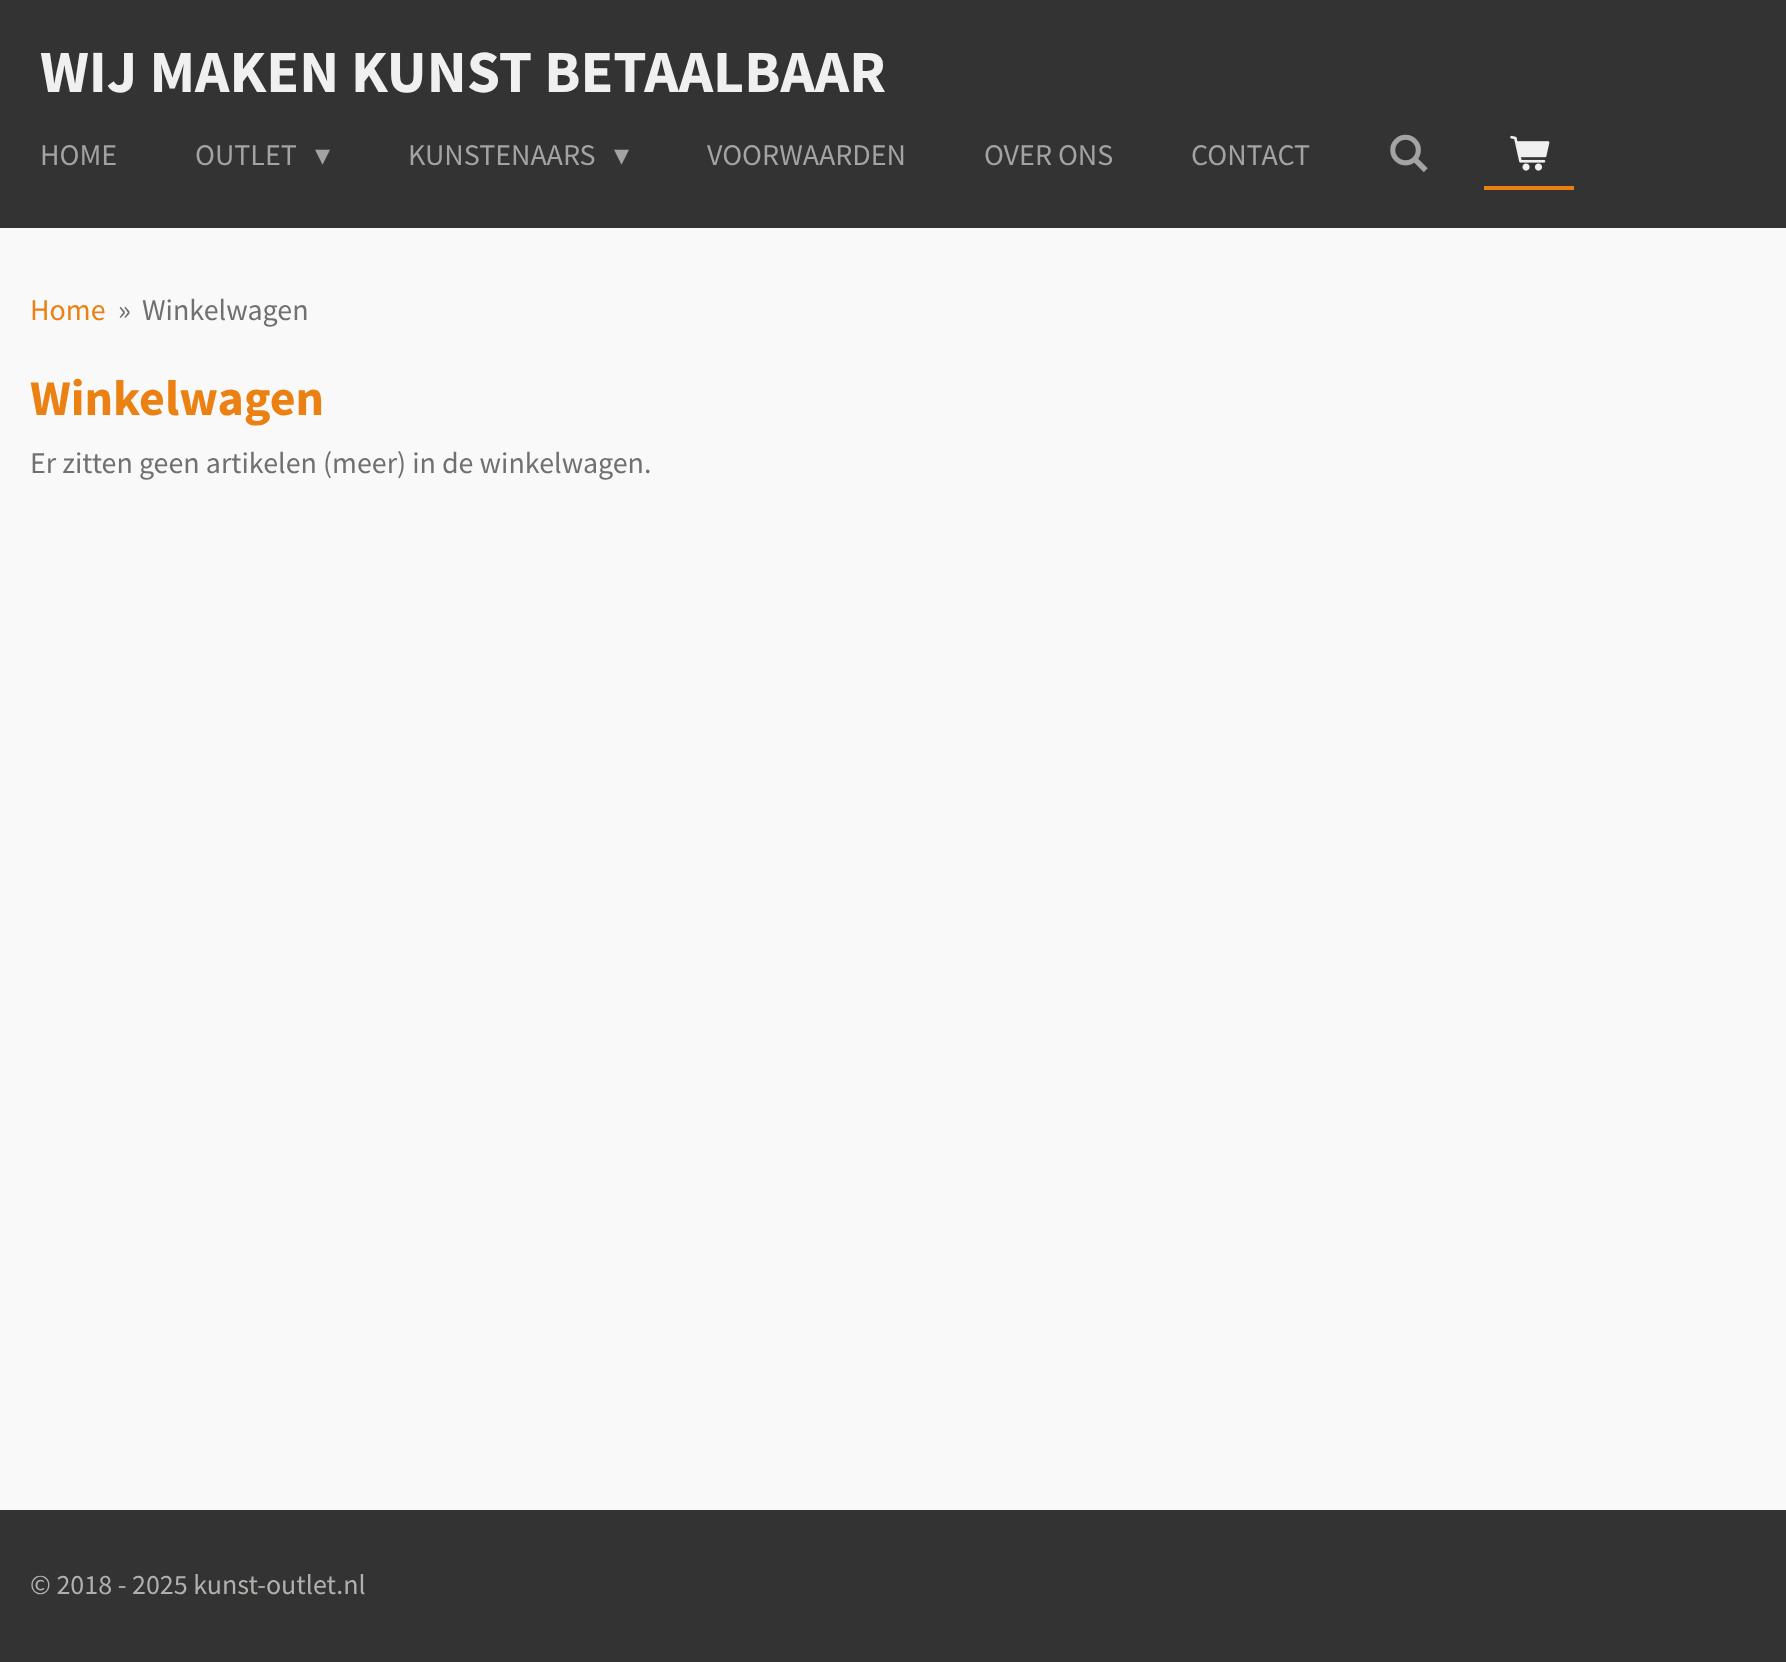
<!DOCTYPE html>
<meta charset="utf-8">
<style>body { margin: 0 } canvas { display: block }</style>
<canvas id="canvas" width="1786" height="1662"></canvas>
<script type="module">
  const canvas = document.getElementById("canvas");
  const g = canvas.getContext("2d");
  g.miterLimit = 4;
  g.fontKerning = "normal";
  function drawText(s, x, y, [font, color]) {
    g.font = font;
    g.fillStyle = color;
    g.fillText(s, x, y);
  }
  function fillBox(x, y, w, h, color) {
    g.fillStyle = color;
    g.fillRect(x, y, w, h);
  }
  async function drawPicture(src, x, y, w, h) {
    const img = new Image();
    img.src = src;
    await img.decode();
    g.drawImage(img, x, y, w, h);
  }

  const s1 = ["bold 60px Source Sans Pro", "#F0F0F0"];
  const s2 = ["30px Source Sans Pro", "#A3A3A3"];
  const s3 = ["30px DejaVu Sans", "#A3A3A3"];
  const s4 = ["30px Source Sans Pro", "#EB8113"];
  const s5 = ["30px Source Sans Pro", "#707070"];
  const s6 = ["bold 50px Source Sans Pro", "#EB8113"];
  const s7 = ["28px Source Sans Pro", "#B1B0AC"];

  fillBox(0, 0, 1786, 1662, "#333333");
  drawText("WIJ MAKEN KUNST BETAALBAAR", 40, 92, s1);
  drawText("HOME", 40, 165, s2);
  drawText("OUTLET", 195, 165, s2);
  drawText("▾", 315, 165, s3);
  drawText("KUNSTENAARS", 408, 165, s2);
  drawText("▾", 614, 165, s3);
  drawText("VOORWAARDEN", 707, 165, s2);
  drawText("OVER ONS", 984, 165, s2);
  drawText("CONTACT", 1191, 165, s2);
  await drawPicture("pic1.png", 1390, 134, 38, 39);
  fillBox(1484, 186, 90, 4, "#EB8113");
  await drawPicture("pic2.png", 1510, 135, 40, 36);
  fillBox(0, 228, 1786, 1282, "#F9F9F9");
  drawText("Home", 30, 320, s4);
  drawText("»", 118, 320, s5);
  drawText("Winkelwagen", 142, 320, s5);
  drawText("Winkelwagen", 30, 415, s6);
  drawText("Er zitten geen artikelen (meer) in de winkelwagen.", 30, 473, s5);
  drawText("© 2018 - 2025 kunst-outlet.nl", 30, 1594, s7);
</script>
